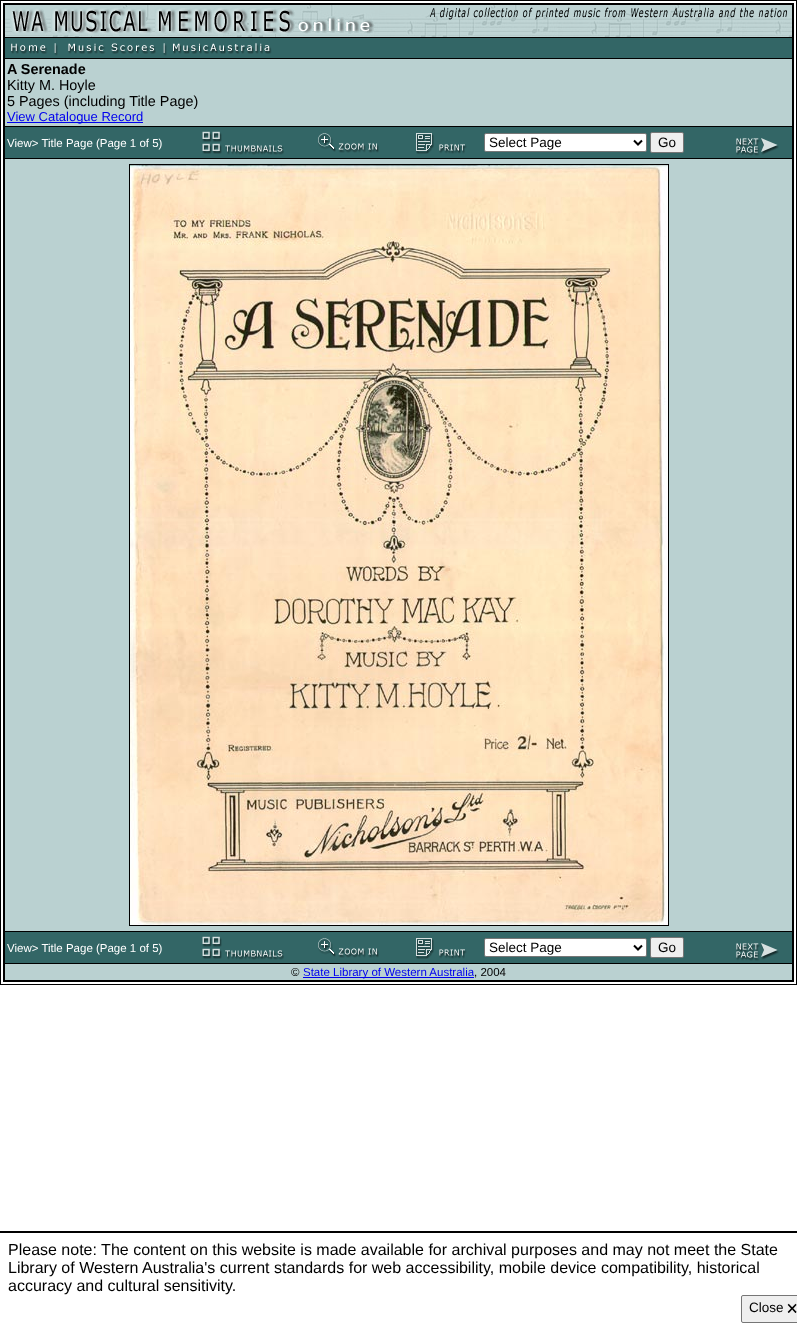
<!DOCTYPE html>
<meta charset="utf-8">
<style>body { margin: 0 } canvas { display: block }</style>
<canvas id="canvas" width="797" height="1331"></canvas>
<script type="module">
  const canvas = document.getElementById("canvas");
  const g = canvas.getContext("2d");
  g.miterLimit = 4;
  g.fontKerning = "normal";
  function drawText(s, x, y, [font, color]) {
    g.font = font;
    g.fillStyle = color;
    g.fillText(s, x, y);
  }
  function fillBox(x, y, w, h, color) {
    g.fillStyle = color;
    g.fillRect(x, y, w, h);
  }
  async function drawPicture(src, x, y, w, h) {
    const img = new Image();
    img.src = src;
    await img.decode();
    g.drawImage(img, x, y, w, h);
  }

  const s1 = ["bold 14.4px Liberation Sans", "#000000"];
  const s2 = ["14.4px Liberation Sans", "#000000"];
  const s3 = ["13px Liberation Sans", "#0000EE"];
  const s4 = ["11.5px Liberation Sans", "#FFFFFF"];
  const s5 = ["13.5px Liberation Sans", "#000000"];
  const s6 = ["11.5px Liberation Sans", "#000000"];
  const s7 = ["11.5px Liberation Sans", "#0000EE"];
  const s8 = ["16px Liberation Sans", "#000000"];
  const s9 = ["13.5px 'Noto Sans Symbols 2'", "#000000"];

  fillBox(0, 0, 797, 1331, "#FFFFFF");
  g.strokeStyle = "#000000";
  g.strokeRect(0.5, 0.5, 796, 984);
  g.strokeRect(3.5, 3.5, 790, 978);
  await drawPicture("pic1.png", 5, 5, 787, 32);
  g.strokeRect(4.5, 4.5, 788, 33);
  await drawPicture("pic2.png", 10, 7, 365, 29);
  await drawPicture("pic3.png", 429, 7, 358, 13);
  fillBox(5, 38, 787, 20, "#336666");
  fillBox(792, 38, 1, 943, "#000000");
  fillBox(4, 58, 789, 1, "#000000");
  fillBox(4, 38, 1, 21, "#000000");
  await drawPicture("pic4.png", 11, 43, 47, 13);
  await drawPicture("pic5.png", 68, 43, 99, 13);
  await drawPicture("pic6.png", 173, 43, 99, 11);
  fillBox(5, 59, 787, 67, "#BAD1D1");
  fillBox(4, 126, 789, 1, "#000000");
  fillBox(4, 59, 1, 68, "#000000");
  drawText("A Serenade", 7, 74, s1);
  drawText("Kitty M. Hoyle", 7, 90, s2);
  drawText("5 Pages (including Title Page)", 7, 106, s2);
  fillBox(7, 122, 136, 1, "#0000EE");
  drawText("View Catalogue Record", 7, 121, s3);
  fillBox(5, 127, 787, 31, "#336666");
  fillBox(4, 158, 789, 1, "#000000");
  fillBox(4, 127, 1, 32, "#000000");
  drawText("View> Title Page (Page 1 of 5)", 7, 147, s4);
  await drawPicture("pic7.png", 202, 131, 82, 24);
  await drawPicture("pic8.png", 318, 133, 61, 20);
  await drawPicture("pic9.png", 416, 133, 51, 21);
  g.beginPath();
  g.roundRect(484.5, 133.5, 162, 18, 1.5);
  g.fill();
  g.strokeStyle = "#767676";
  g.stroke();
  g.beginPath();
  g.moveTo(634, 140.5);
  g.lineTo(638, 144.5);
  g.lineTo(642, 140.5);
  g.strokeStyle = "#000000";
  g.lineWidth = 2;
  g.stroke();
  drawText("Select Page", 489, 147, s5);
  g.fillStyle = "#EFEFEF";
  g.beginPath();
  g.roundRect(650.5, 132.5, 33, 20, 1.5);
  g.fill();
  g.strokeStyle = "#767676";
  g.lineWidth = 1;
  g.stroke();
  drawText("Go", 658, 147, s5);
  await drawPicture("pic10.png", 736, 138, 43, 18);
  fillBox(5, 159, 787, 772, "#BAD1D1");
  fillBox(4, 931, 789, 1, "#000000");
  fillBox(4, 159, 1, 773, "#000000");
  g.strokeStyle = "#000000";
  g.strokeRect(129.5, 164.5, 539, 761);
  await drawPicture("pic11.png", 130, 165, 538, 760);
  fillBox(5, 932, 787, 31, "#336666");
  fillBox(4, 963, 789, 1, "#000000");
  fillBox(4, 932, 1, 32, "#000000");
  drawText("View> Title Page (Page 1 of 5)", 7, 952, s4);
  await drawPicture("pic7.png", 202, 936, 82, 24);
  await drawPicture("pic8.png", 318, 938, 61, 20);
  await drawPicture("pic9.png", 416, 938, 51, 21);
  g.beginPath();
  g.roundRect(484.5, 938.5, 162, 18, 1.5);
  g.fill();
  g.strokeStyle = "#767676";
  g.stroke();
  g.beginPath();
  g.moveTo(634, 945.5);
  g.lineTo(638, 949.5);
  g.lineTo(642, 945.5);
  g.strokeStyle = "#000000";
  g.lineWidth = 2;
  g.stroke();
  drawText("Select Page", 489, 952, s5);
  g.fillStyle = "#EFEFEF";
  g.beginPath();
  g.roundRect(650.5, 937.5, 33, 20, 1.5);
  g.fill();
  g.strokeStyle = "#767676";
  g.lineWidth = 1;
  g.stroke();
  drawText("Go", 658, 952, s5);
  await drawPicture("pic10.png", 736, 943, 43, 18);
  fillBox(5, 964, 787, 16, "#BAD1D1");
  fillBox(4, 980, 789, 1, "#000000");
  fillBox(4, 964, 1, 17, "#000000");
  drawText("©", 291, 976, s6);
  fillBox(303, 977, 171, 1, "#0000EE");
  drawText("State Library of Western Australia", 303, 976, s7);
  drawText(", 2004", 474, 976, s6);
  fillBox(0, 1231, 797, 2, "#000000");
  drawText("Please note: The content on this website is made available for archival purposes and may not meet the State", 8, 1255, s8);
  drawText("Library of Western Australia's current standards for web accessibility, mobile device compatibility, historical", 8, 1273, s8);
  drawText("accuracy and cultural sensitivity.", 8, 1291, s8);
  g.fillStyle = "#EFEFEF";
  g.beginPath();
  g.roundRect(741.5, 1295.5, 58, 27, 1.5);
  g.fill();
  g.stroke();
  drawText("Close", 749, 1312, s5);
  drawText("🗙", 787, 1312, s9);
</script>
